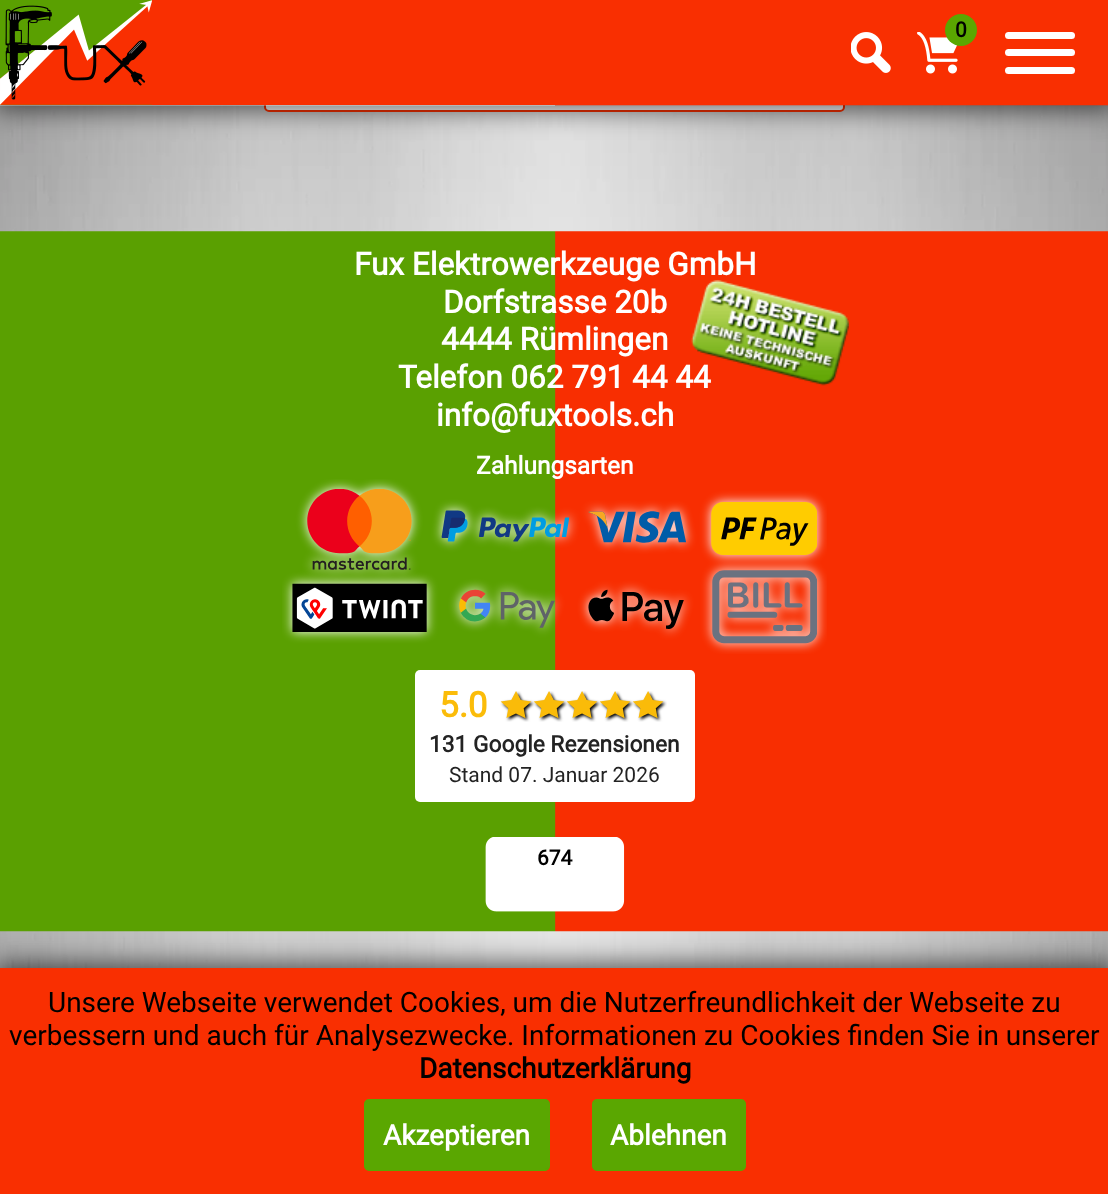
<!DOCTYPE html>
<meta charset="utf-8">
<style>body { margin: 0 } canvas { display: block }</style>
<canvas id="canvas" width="1108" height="1194"></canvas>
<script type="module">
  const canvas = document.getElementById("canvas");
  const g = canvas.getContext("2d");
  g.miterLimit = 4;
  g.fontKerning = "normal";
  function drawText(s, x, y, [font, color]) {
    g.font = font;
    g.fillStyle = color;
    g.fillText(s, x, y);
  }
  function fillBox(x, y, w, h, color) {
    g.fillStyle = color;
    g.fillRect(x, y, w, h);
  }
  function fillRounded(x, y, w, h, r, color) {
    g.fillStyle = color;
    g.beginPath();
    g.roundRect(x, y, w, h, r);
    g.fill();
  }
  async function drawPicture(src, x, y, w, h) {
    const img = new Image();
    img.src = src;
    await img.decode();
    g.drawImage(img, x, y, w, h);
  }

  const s1 = ["bold 21px Roboto", "#000000"];
  const s2 = ["bold 31.5px Roboto", "#FFFFFF"];
  const s3 = ["bold 24.5px Roboto", "#FFFFFF"];
  const s4 = ["bold 35px Roboto", "#FBBC09"];
  const s5 = ["bold 22.75px Roboto", "#232323"];
  const s6 = ["21px Roboto", "#232323"];
  const s7 = ["28px Roboto", "#000000"];
  const s8 = ["bold 28px Roboto", "#000000"];
  const s9 = ["bold 28px Roboto", "#FFFFFF"];

  fillBox(0, 0, 1108, 1194, "#FFFFFF");
  await drawPicture("pic1.png", 0, 105, 1108, 863);
  g.beginPath();
  g.roundRect(265, -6, 579, 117, 4);
  g.fill();
  g.strokeStyle = "#F92F01";
  g.lineWidth = 2;
  g.stroke();
  g.fillStyle = "rgba(0, 0, 0, 0.6)";
  g.filter = "blur(13px)";
  g.beginPath();
  g.rect(-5, -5, 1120, 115);
  g.fill();
  g.filter = "none";
  await drawPicture("pic2.png", 0, 105, 1108, 1);
  fillBox(152, 0, 956, 105, "#F92F01");
  await drawPicture("pic3.png", 0, 0, 152, 105);
  await drawPicture("pic4.png", 917, 32, 41, 42);
  g.fillStyle = "#5AA701";
  g.beginPath();
  g.arc(961, 30, 16, 0, Math.PI * 2);
  g.fill();
  drawText("0", 955, 37, s1);
  await drawPicture("pic5.png", 851, 32, 40, 41);
  fillRounded(1005, 49, 70, 7, 3.5, "#FFFFFF");
  fillRounded(1005, 32, 70, 7, 3.5, "#FFFFFF");
  fillRounded(1005, 67, 70, 7, 3.5, "#FFFFFF");
  await drawPicture("pic6.png", 0, 231, 1108, 701);
  drawText("Fux Elektrowerkzeuge GmbH", 354, 275, s2);
  drawText("Dorfstrasse 20b", 443, 313, s2);
  drawText("Telefon 062 791 44 44", 398, 388, s2);
  await drawPicture("pic7.png", 691, 280, 158, 106);
  drawText("4444 Rümlingen", 441, 350, s2);
  drawText("info@fuxtools.ch", 436, 426, s2);
  drawText("Zahlungsarten", 476, 474, s3);
  await drawPicture("pic8.png", 282, 479, 545, 175);
  fillRounded(415, 670, 280, 132, 5, "#FFFFFF");
  drawText("5.0", 439, 717, s4);
  await drawPicture("pic9.png", 500, 691, 167, 31);
  drawText("131 Google Rezensionen", 429, 752, s5);
  drawText("Stand 07. Januar 2026", 449, 782, s6);
  await drawPicture("pic10.png", 485, 837, 140, 75);
  drawText("674", 537, 865, s1);
  g.fillStyle = "rgba(0, 0, 0, 0.6)";
  g.filter = "blur(13px)";
  g.beginPath();
  g.rect(-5, 963, 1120, 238);
  g.fill();
  g.filter = "none";
  fillBox(0, 968, 1108, 226, "#F92F01");
  drawText("Unsere Webseite verwendet Cookies, um die Nutzerfreundlichkeit der Webseite zu", 48, 1012, s7);
  drawText("verbessern und auch für Analysezwecke. Informationen zu Cookies finden Sie in unserer", 9, 1045, s7);
  drawText("Datenschutzerklärung", 419, 1078, s8);
  g.fillStyle = "#5AA701";
  g.beginPath();
  g.roundRect(365, 1100, 184, 70, 4);
  g.fill();
  g.strokeStyle = "#5AA701";
  g.stroke();
  drawText("Akzeptieren", 383, 1145, s9);
  g.fillStyle = "#5AA701";
  g.beginPath();
  g.roundRect(593, 1100, 152, 70, 4);
  g.fill();
  g.stroke();
  drawText("Ablehnen", 610, 1145, s9);
</script>
